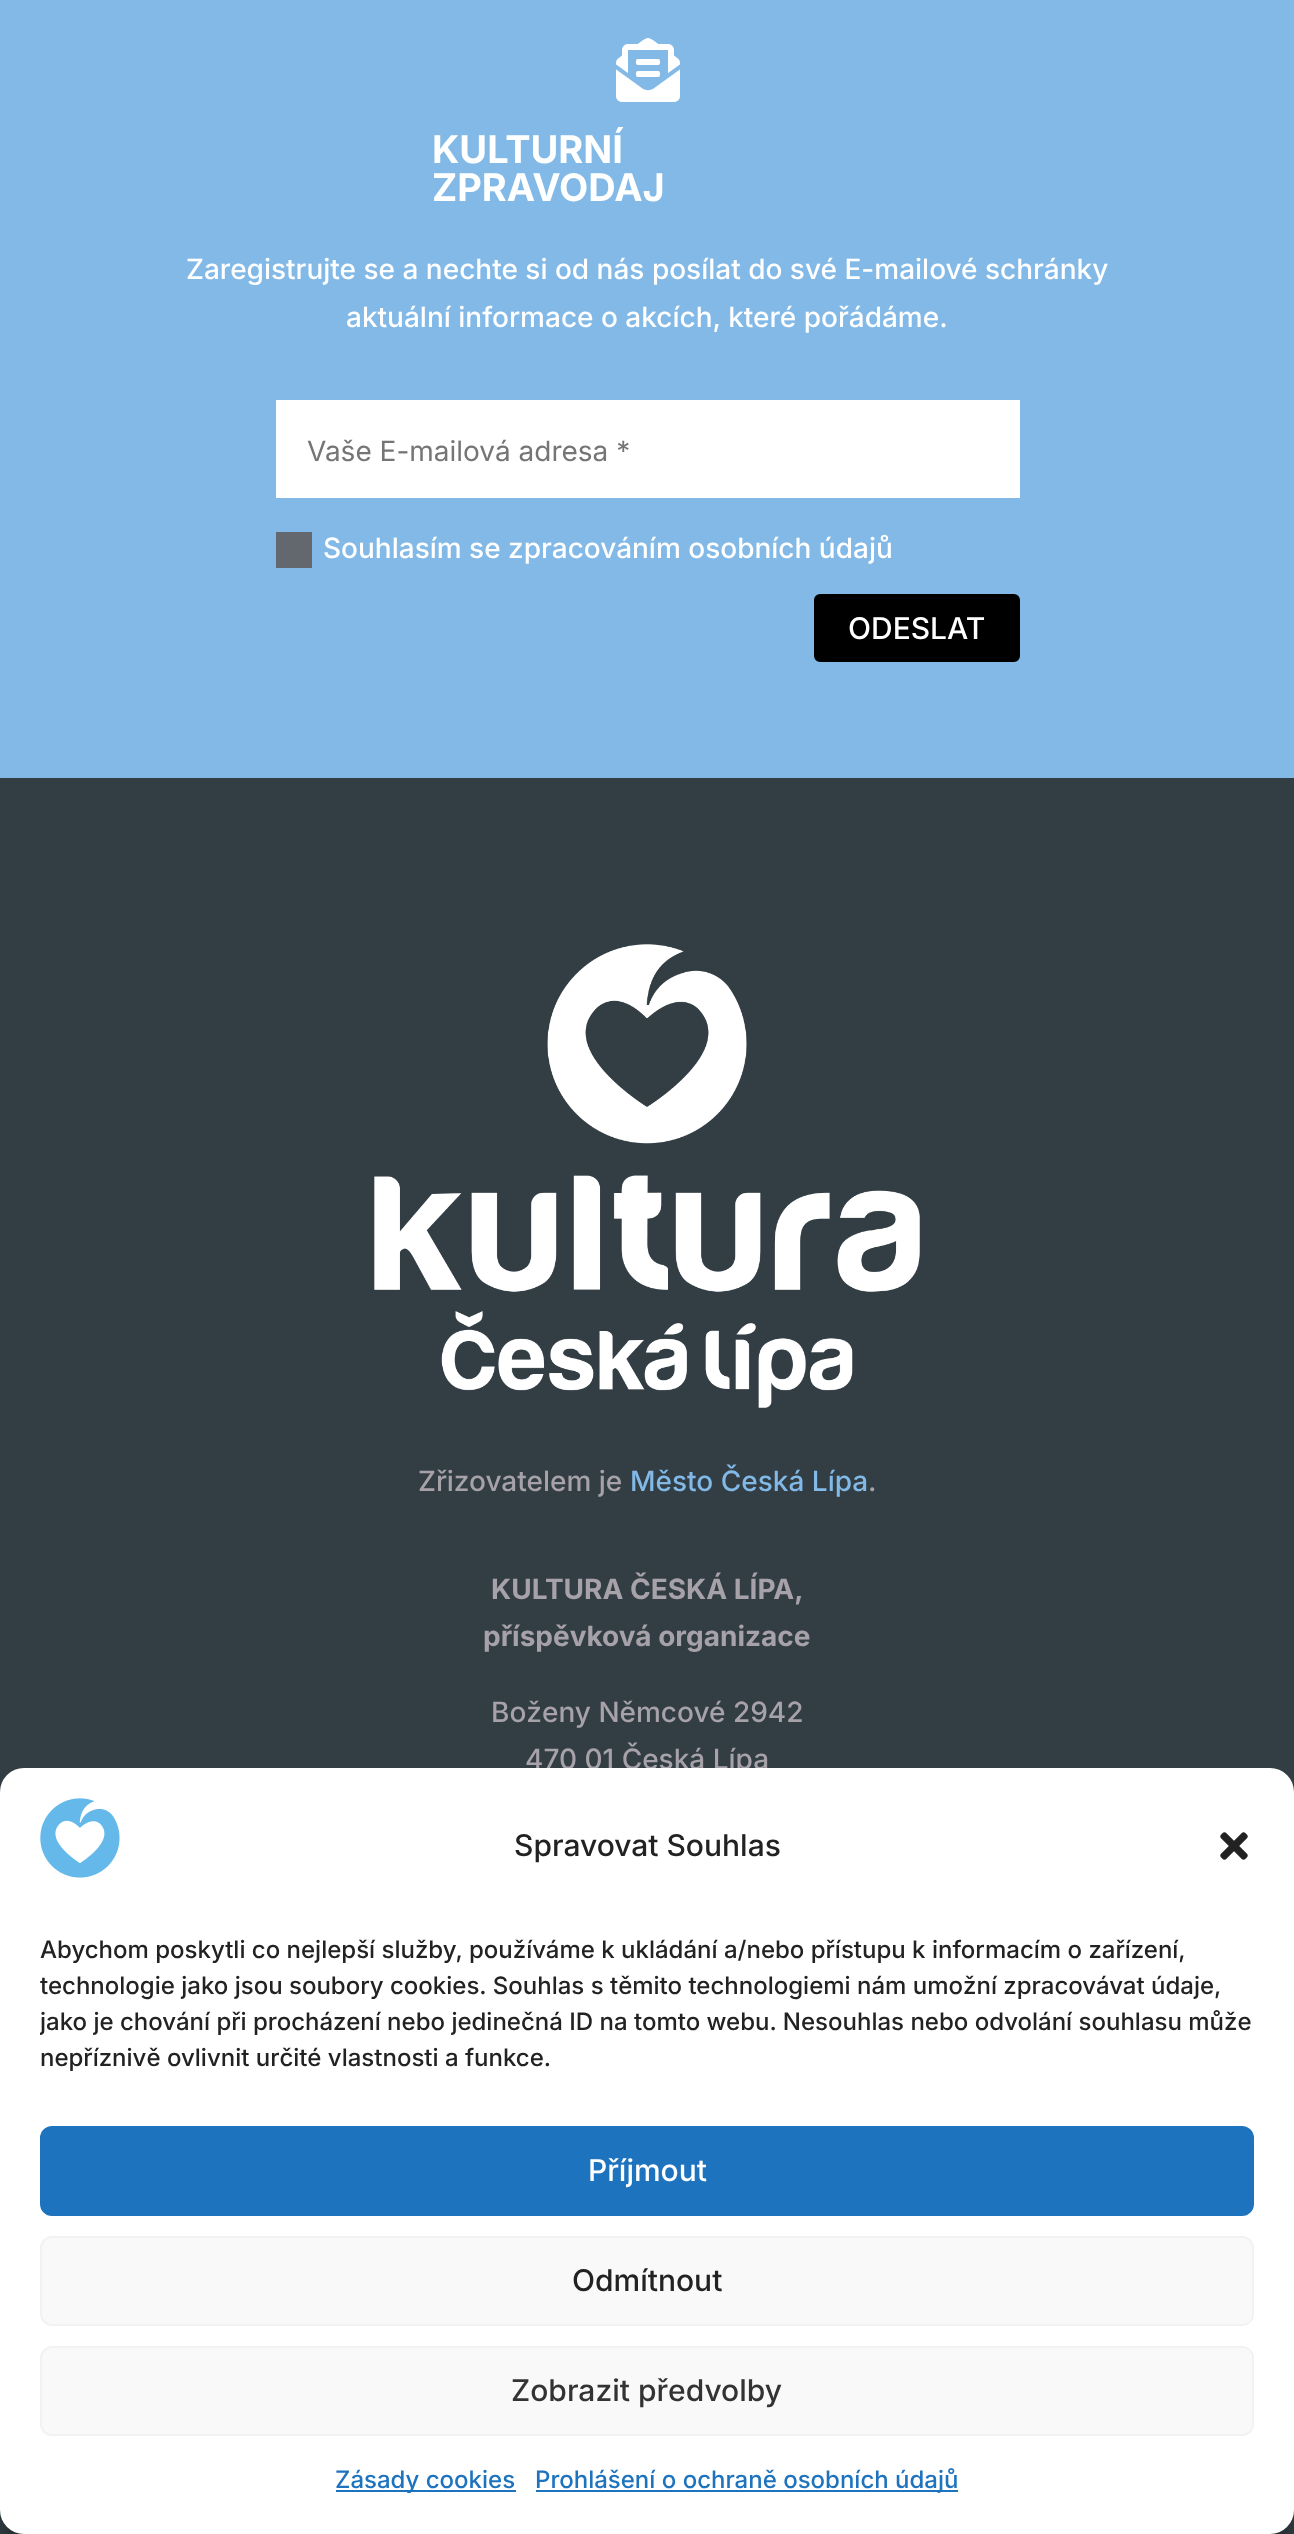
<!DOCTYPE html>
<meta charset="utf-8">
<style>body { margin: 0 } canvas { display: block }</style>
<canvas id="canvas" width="1294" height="2534"></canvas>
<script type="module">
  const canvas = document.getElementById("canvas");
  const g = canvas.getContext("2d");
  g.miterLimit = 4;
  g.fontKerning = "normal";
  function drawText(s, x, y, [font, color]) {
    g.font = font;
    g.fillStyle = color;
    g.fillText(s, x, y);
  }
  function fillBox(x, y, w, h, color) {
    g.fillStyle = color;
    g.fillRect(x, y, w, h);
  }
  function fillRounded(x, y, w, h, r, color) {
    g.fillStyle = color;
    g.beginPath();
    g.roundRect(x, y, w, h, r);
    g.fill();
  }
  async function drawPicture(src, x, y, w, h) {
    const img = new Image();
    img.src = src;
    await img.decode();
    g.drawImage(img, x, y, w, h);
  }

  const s1 = ["bold 38px Inter", "#FFFFFF"];
  const s2 = ["500 28px Inter", "#FFFFFF"];
  const s3 = ["28px Inter", "#757575"];
  const s4 = ["500 30px Inter", "#FFFFFF"];
  const s5 = ["500 28px Inter", "#A7A2A9"];
  const s6 = ["500 28px Inter", "#82B9E7"];
  const s7 = ["bold 28px Inter", "#A7A2A9"];
  const s8 = ["500 30px Inter", "#222222"];
  const s9 = ["500 24px Inter", "#222222"];
  const s10 = ["500 30px Inter", "#333333"];
  const s11 = ["500 24px Inter", "#1E73BE"];

  fillBox(0, 0, 1294, 2534, "#82B9E7");
  await drawPicture("pic1.png", 616, 38, 64, 64);
  drawText("KULTURNÍ", 432, 163, s1);
  drawText("ZPRAVODAJ", 432, 201, s1);
  drawText("Zaregistrujte se a nechte si od nás posílat do své E-mailové schránky", 186, 279, s2);
  drawText("aktuální informace o akcích, které pořádáme.", 346, 327, s2);
  fillBox(276, 400, 744, 98, "#FFFFFF");
  drawText("Vaše E-mailová adresa *", 307, 461, s3);
  fillBox(276, 532, 36, 36, "#63686E");
  drawText("Souhlasím se zpracováním osobních údajů", 323, 558, s2);
  g.fillStyle = "#000000";
  g.beginPath();
  g.roundRect(816, 596, 202, 64, 4);
  g.fill();
  g.strokeStyle = "#000000";
  g.lineWidth = 4;
  g.stroke();
  drawText("ODESLAT", 848, 639, s4);
  fillBox(0, 778, 1294, 1756, "#323E44");
  await drawPicture("pic2.png", 374, 944, 546, 464);
  drawText("Zřizovatelem je", 418, 1491, s5);
  drawText("Město Česká Lípa", 630, 1491, s6);
  drawText(".", 868, 1491, s5);
  drawText("KULTURA ČESKÁ LÍPA,", 491, 1599, s7);
  drawText("příspěvková organizace", 483, 1646, s7);
  drawText("Boženy Němcové 2942", 491, 1722, s5);
  drawText("470 01 Česká Lípa", 525, 1769, s5);
  g.fillStyle = "rgba(0, 0, 0, 0.23)";
  g.filter = "blur(6px)";
  g.beginPath();
  g.roundRect(0, 1780, 1294, 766, 24);
  g.fill();
  g.filter = "none";
  fillRounded(0, 1768, 1294, 766, 24, "#FFFFFF");
  await drawPicture("pic3.png", 40, 1798, 80, 80);
  drawText("Spravovat Souhlas", 514, 1856, s8);
  await drawPicture("pic4.png", 1220, 1832, 28, 28);
  drawText("Abychom poskytli co nejlepší služby, používáme k ukládání a/nebo přístupu k informacím o zařízení,", 40, 1958, s9);
  drawText("technologie jako jsou soubory cookies. Souhlas s těmito technologiemi nám umožní zpracovávat údaje,", 40, 1994, s9);
  g.save();
  g.beginPath();
  g.rect(40, 1932, 1214, 154);
  g.clip();
  drawText("jako je chování při procházení nebo jedinečná ID na tomto webu. Nesouhlas nebo odvolání souhlasu může", 40, 2030, s9);
  g.restore();
  drawText("nepříznivě ovlivnit určité vlastnosti a funkce.", 40, 2066, s9);
  g.fillStyle = "#1E73BE";
  g.beginPath();
  g.roundRect(41, 2127, 1212, 88, 11);
  g.fill();
  g.strokeStyle = "#1E73BE";
  g.lineWidth = 2;
  g.stroke();
  drawText("Příjmout", 588, 2181, s4);
  g.fillStyle = "#F9F9F9";
  g.beginPath();
  g.roundRect(41, 2237, 1212, 88, 11);
  g.fill();
  g.strokeStyle = "#F2F2F2";
  g.stroke();
  drawText("Odmítnout", 572, 2291, s8);
  g.fillStyle = "#F9F9F9";
  g.beginPath();
  g.roundRect(41, 2347, 1212, 88, 11);
  g.fill();
  g.stroke();
  drawText("Zobrazit předvolby", 511, 2401, s10);
  fillBox(336, 2490, 180, 2, "#1E73BE");
  drawText("Zásady cookies", 335, 2488, s11);
  fillBox(536, 2490, 422, 2, "#1E73BE");
  drawText("Prohlášení o ochraně osobních údajů", 535, 2488, s11);
</script>
